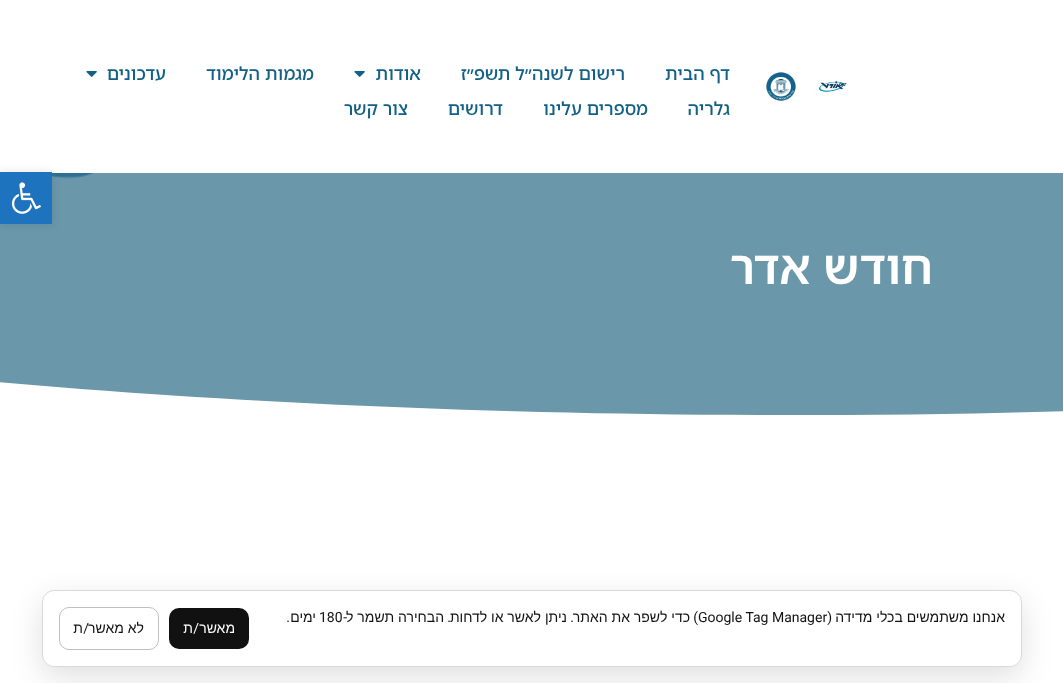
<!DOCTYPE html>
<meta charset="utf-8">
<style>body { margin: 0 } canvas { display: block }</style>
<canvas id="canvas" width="1063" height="683"></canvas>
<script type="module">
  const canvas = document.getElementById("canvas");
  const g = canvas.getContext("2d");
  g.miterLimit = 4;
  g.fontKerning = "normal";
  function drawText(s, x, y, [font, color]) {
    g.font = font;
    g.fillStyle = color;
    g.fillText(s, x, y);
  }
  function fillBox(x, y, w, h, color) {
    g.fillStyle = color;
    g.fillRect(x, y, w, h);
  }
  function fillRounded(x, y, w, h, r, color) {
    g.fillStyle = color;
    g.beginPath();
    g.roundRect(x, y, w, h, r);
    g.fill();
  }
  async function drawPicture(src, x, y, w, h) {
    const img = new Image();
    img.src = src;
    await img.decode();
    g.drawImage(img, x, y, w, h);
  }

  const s1 = ["500 18px Noto Sans Hebrew", "#126087"];
  const s2 = ["600 47px Noto Sans Hebrew", "#FFFFFF"];
  const s3 = ["14px Liberation Sans", "#111111"];
  const s4 = ["14px Roboto", "#111111"];
  const s5 = ["14px Liberation Sans", "#FFFFFF"];
  const s6 = ["14px Roboto", "#FFFFFF"];

  fillBox(0, 0, 1063, 683, "#FFFFFF");
  await drawPicture("pic1.png", 818, 81, 29, 11);
  await drawPicture("pic2.png", 766, 72, 30, 29);
  g.direction = "rtl";
  drawText("דף הבית", 730, 80, s1);
  drawText("רישום לשנה״ל תשפ״ז", 625, 80, s1);
  drawText("אודות", 421, 80, s1);
  await drawPicture("pic3.png", 354, 71, 11, 6);
  drawText("מגמות הלימוד", 314, 80, s1);
  drawText("עדכונים", 166, 80, s1);
  await drawPicture("pic3.png", 86, 71, 11, 6);
  drawText("גלריה", 730, 115, s1);
  drawText("מספרים עלינו", 648, 115, s1);
  drawText("דרושים", 503, 115, s1);
  drawText("צור קשר", 408, 115, s1);
  fillBox(0, 173, 1063, 242, "#6A97AA");
  await drawPicture("pic5.png", 52, 173, 42, 6);
  g.fillStyle = "rgba(0, 0, 0, 0.1)";
  g.filter = "blur(5px)";
  g.beginPath();
  g.rect(0, 172, 52, 52);
  g.fill();
  g.filter = "none";
  fillBox(0, 172, 52, 52, "#1E73BE");
  await drawPicture("pic4.png", 11, 182, 30, 32);
  drawText("חודש אדר", 933, 284, s2);
  g.beginPath();
  g.moveTo(810, 415);
  g.bezierCurveTo(-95, 417, -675, 297, -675, 268);
  g.lineTo(-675, 420);
  g.lineTo(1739, 420);
  g.lineTo(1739, 268);
  g.bezierCurveTo(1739, 297, 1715, 414, 810, 415);
  g.closePath();
  g.fill();
  g.fillStyle = "rgba(0, 0, 0, 0.12)";
  g.filter = "blur(15px)";
  g.beginPath();
  g.roundRect(42, 600, 980, 77, 12);
  g.fill();
  g.filter = "none";
  fillRounded(42, 590, 980, 77, 12, "#FFFFFF");
  g.beginPath();
  g.roundRect(42.5, 590.5, 979, 76, 11.5);
  g.strokeStyle = "rgba(0, 0, 0, 0.15)";
  g.stroke();
  drawText("אנחנו משתמשים בכלי מדידה", 1005, 622, s3);
  drawText("(", 832, 622, s4);
  g.direction = "ltr";
  drawText("Google Tag Manager", 698, 622, s4);
  g.direction = "rtl";
  drawText(")", 698, 622, s4);
  drawText("כדי לשפר את האתר", 690, 622, s3);
  drawText("ניתן לאשר או לדחות", 567, 622, s3);
  drawText("הבחירה תשמר ל", 444, 622, s3);
  drawText("-", 347, 622, s4);
  g.direction = "ltr";
  drawText("180", 319, 622, s4);
  g.direction = "rtl";
  drawText("ימים", 316, 622, s3);
  drawText(".", 574, 622, s4);
  drawText(".", 451, 622, s4);
  drawText(".", 290, 622, s4);
  fillRounded(169, 608, 80, 41, 10, "#111111");
  drawText("מאשר", 235, 633, s5);
  drawText("/", 199, 633, s6);
  drawText("ת", 193, 633, s5);
  g.beginPath();
  g.roundRect(59.5, 607.5, 99, 42, 9.5);
  g.strokeStyle = "#BFBFBF";
  g.stroke();
  drawText("לא מאשר", 144, 633, s3);
  drawText("/", 89, 633, s4);
  drawText("ת", 83, 633, s3);
</script>
